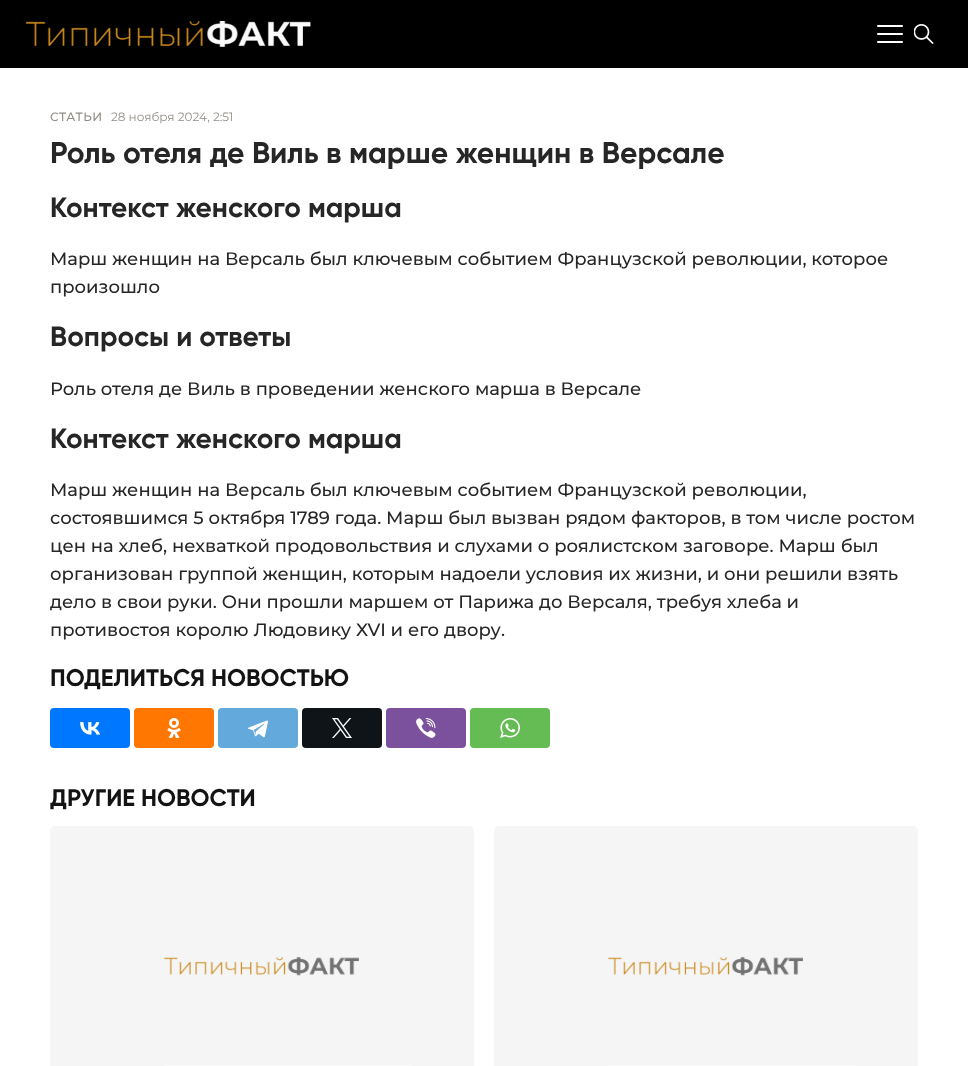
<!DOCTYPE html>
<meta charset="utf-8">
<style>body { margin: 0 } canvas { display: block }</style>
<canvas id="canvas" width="968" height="1066"></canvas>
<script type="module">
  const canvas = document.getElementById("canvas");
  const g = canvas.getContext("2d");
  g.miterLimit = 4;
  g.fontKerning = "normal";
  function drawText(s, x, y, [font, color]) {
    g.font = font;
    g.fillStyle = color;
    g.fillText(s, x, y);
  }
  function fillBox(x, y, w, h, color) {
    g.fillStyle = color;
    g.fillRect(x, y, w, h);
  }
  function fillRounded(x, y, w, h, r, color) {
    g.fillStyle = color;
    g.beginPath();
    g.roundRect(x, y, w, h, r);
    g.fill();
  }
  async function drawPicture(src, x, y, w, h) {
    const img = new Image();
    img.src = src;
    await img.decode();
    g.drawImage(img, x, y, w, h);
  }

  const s1 = ["500 12px Montserrat", "#938E86"];
  const s2 = ["12px Montserrat", "#938E86"];
  const s3 = ["bold 30px Gilroy", "#262626"];
  const s4 = ["bold 28px Gilroy", "#262626"];
  const s5 = ["500 18px Montserrat", "#262626"];
  const s6 = ["bold 24px Gilroy", "#131313"];

  fillBox(0, 0, 968, 1066, "#FFFFFF");
  fillBox(0, 0, 968, 68, "#000000");
  await drawPicture("pic1.png", 25, 21, 286, 26);
  fillRounded(877, 33, 26, 2, 1, "#FFFFFF");
  fillRounded(877, 25, 26, 2, 1, "#FFFFFF");
  fillRounded(877, 41, 26, 2, 1, "#FFFFFF");
  await drawPicture("pic2.png", 914, 24, 20, 20);
  g.letterSpacing = "0.5px";
  drawText("СТАТЬИ", 50, 121, s1);
  g.letterSpacing = "0px";
  drawText("28 ноября 2024, 2:51", 111, 121, s2);
  drawText("Роль отеля де Виль в марше женщин в Версале", 50, 163, s3);
  drawText("Контекст женского марша", 50, 217, s4);
  drawText("Марш женщин на Версаль был ключевым событием Французской революции, которое", 50, 265, s5);
  drawText("произошло", 50, 293, s5);
  drawText("Вопросы и ответы", 50, 346, s4);
  drawText("Роль отеля де Виль в проведении женского марша в Версале", 50, 395, s5);
  drawText("Контекст женского марша", 50, 448, s4);
  drawText("Марш женщин на Версаль был ключевым событием Французской революции,", 50, 496, s5);
  drawText("состоявшимся 5 октября 1789 года. Марш был вызван рядом факторов, в том числе ростом", 50, 524, s5);
  drawText("цен на хлеб, нехваткой продовольствия и слухами о роялистском заговоре. Марш был", 50, 552, s5);
  drawText("организован группой женщин, которым надоели условия их жизни, и они решили взять", 50, 580, s5);
  drawText("дело в свои руки. Они прошли маршем от Парижа до Версаля, требуя хлеба и", 50, 608, s5);
  drawText("противостоя королю Людовику XVI и его двору.", 50, 636, s5);
  drawText("ПОДЕЛИТЬСЯ НОВОСТЬЮ", 50, 686, s6);
  fillRounded(50, 708, 80, 40, 4, "#0077FF");
  await drawPicture("pic3.png", 80, 722, 20, 13);
  fillRounded(134, 708, 80, 40, 4, "#FF7700");
  await drawPicture("pic4.png", 167, 718, 14, 20);
  fillRounded(218, 708, 80, 40, 4, "#64A9DC");
  await drawPicture("pic5.png", 248, 720, 20, 18);
  fillRounded(302, 708, 80, 40, 4, "#0F1419");
  await drawPicture("pic6.png", 332, 718, 20, 20);
  fillRounded(386, 708, 80, 40, 4, "#7B519D");
  await drawPicture("pic7.png", 416, 718, 20, 20);
  fillRounded(470, 708, 80, 40, 4, "#65BC54");
  await drawPicture("pic8.png", 500, 718, 20, 20);
  drawText("ДРУГИЕ НОВОСТИ", 50, 806, s6);
  fillRounded(50, 826, 424, 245, 5, "#F5F5F5");
  await drawPicture("pic9.png", 164, 956, 248, 110);
  fillRounded(494, 826, 424, 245, 5, "#F5F5F5");
  await drawPicture("pic10.png", 608, 956, 248, 110);
</script>
